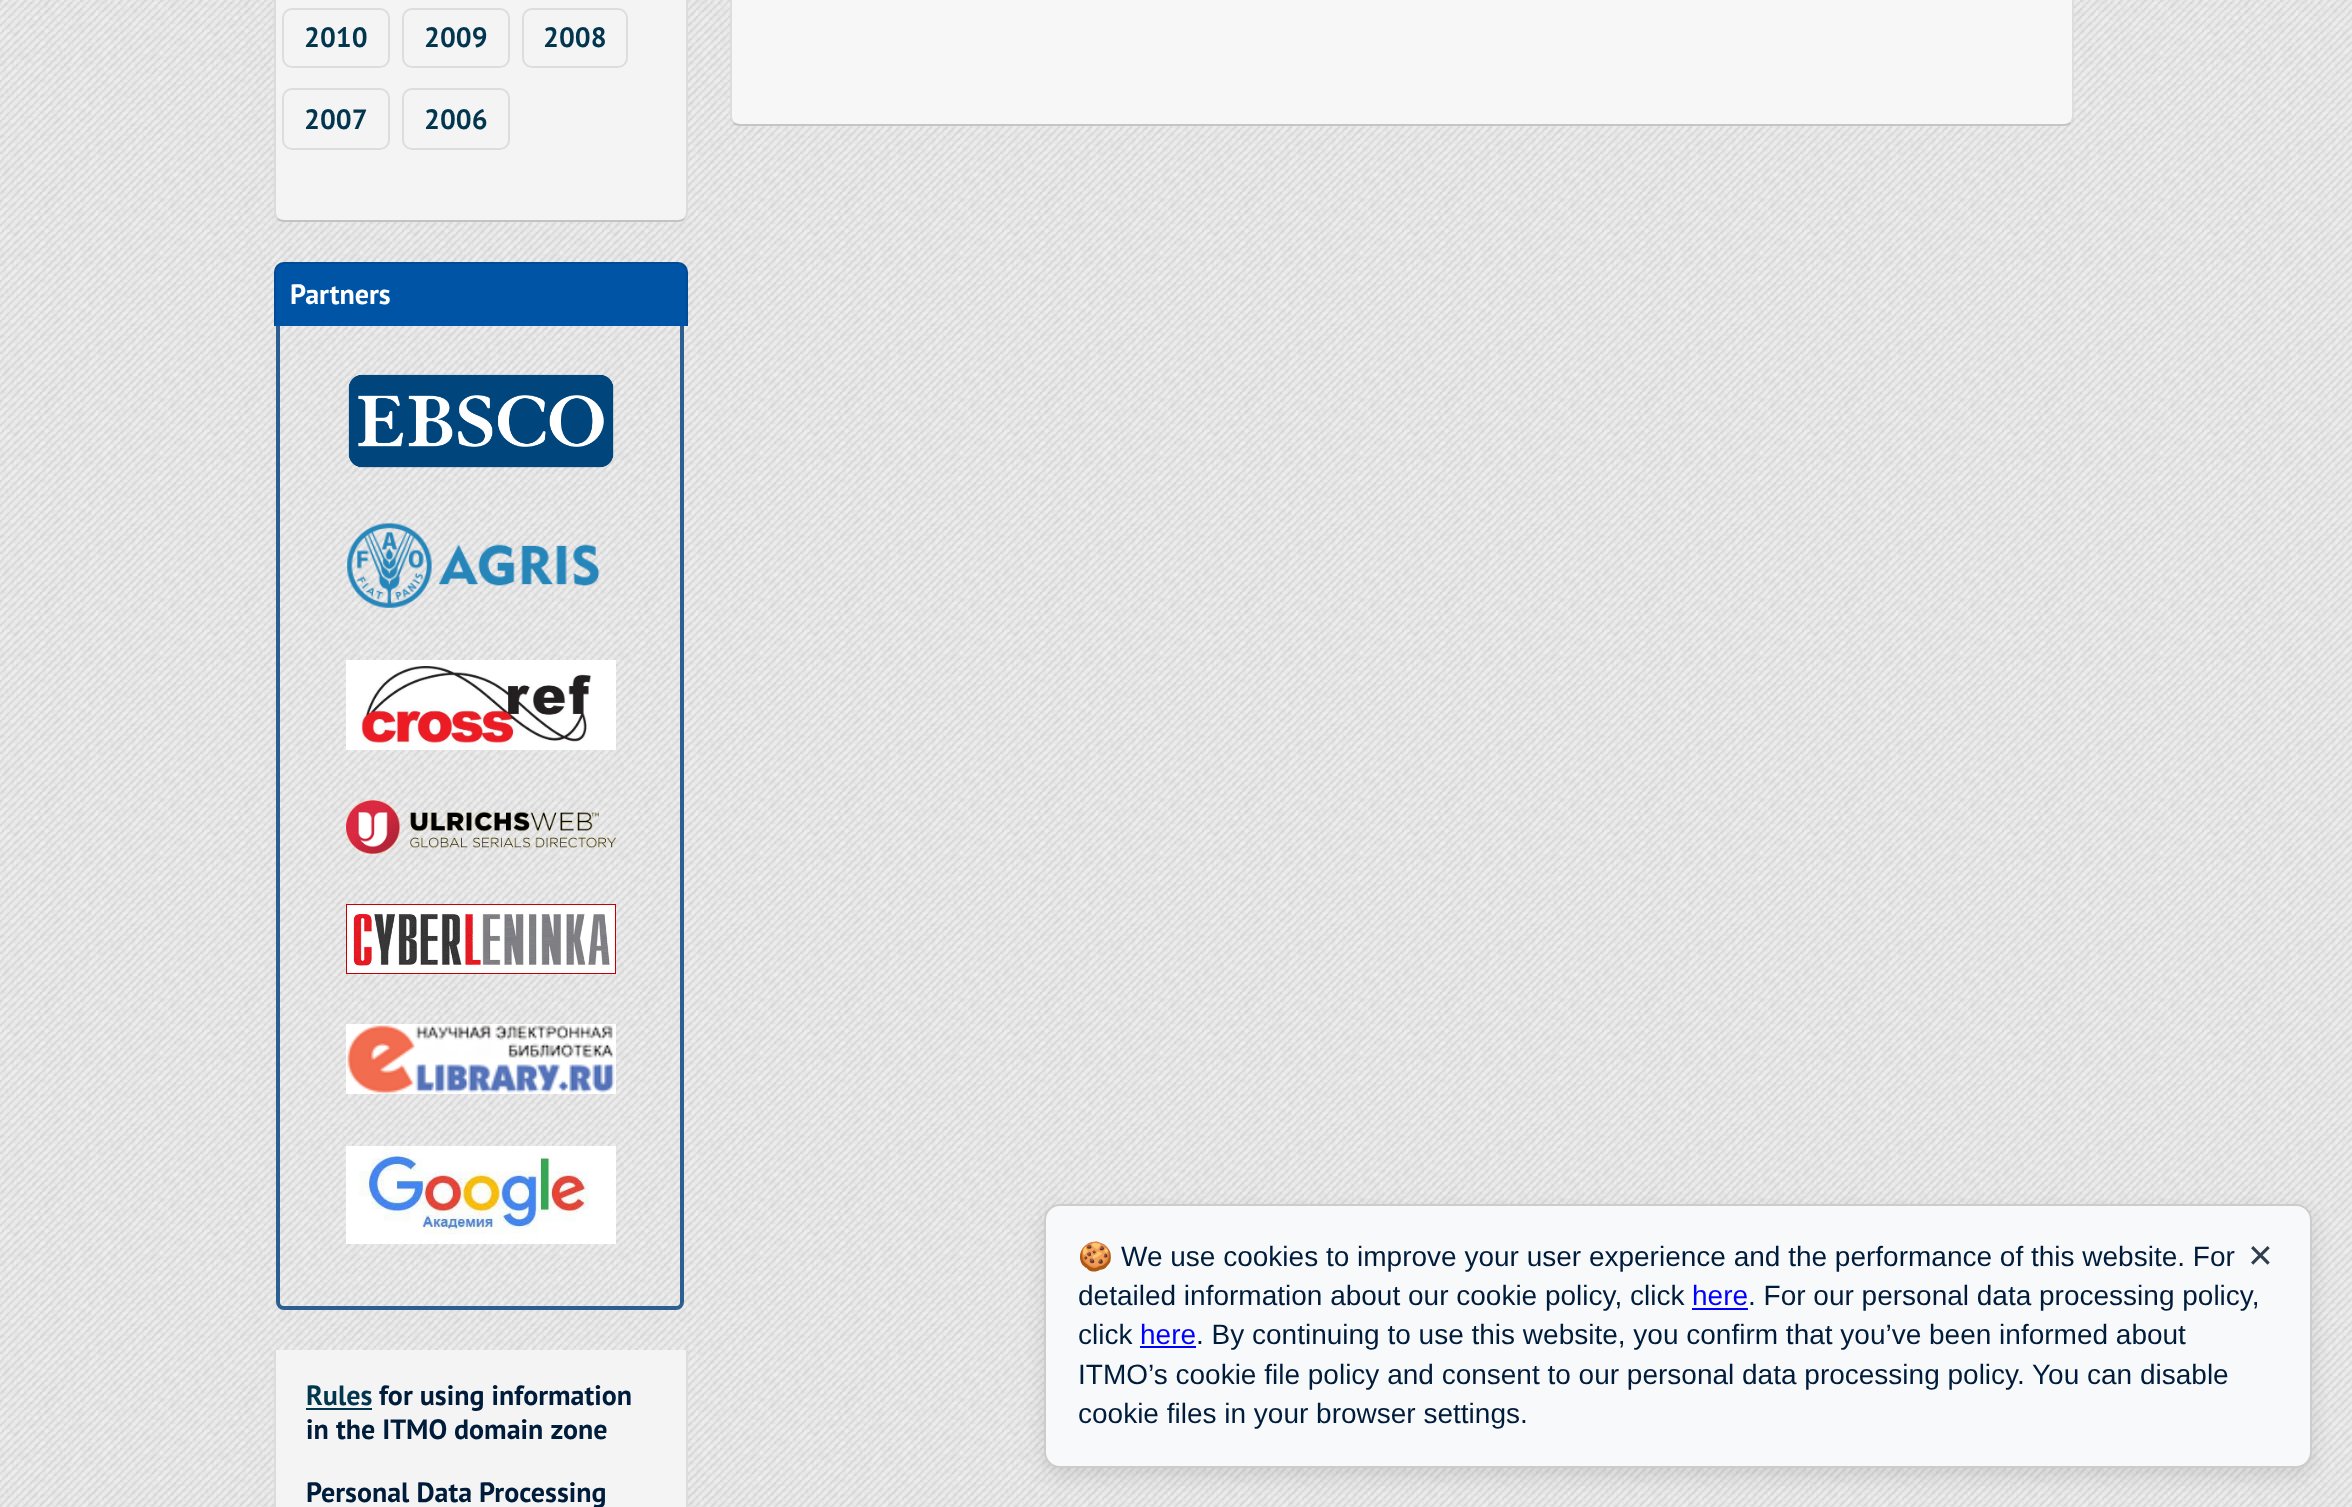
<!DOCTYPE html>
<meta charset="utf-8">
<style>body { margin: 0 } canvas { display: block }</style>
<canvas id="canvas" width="2352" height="1507"></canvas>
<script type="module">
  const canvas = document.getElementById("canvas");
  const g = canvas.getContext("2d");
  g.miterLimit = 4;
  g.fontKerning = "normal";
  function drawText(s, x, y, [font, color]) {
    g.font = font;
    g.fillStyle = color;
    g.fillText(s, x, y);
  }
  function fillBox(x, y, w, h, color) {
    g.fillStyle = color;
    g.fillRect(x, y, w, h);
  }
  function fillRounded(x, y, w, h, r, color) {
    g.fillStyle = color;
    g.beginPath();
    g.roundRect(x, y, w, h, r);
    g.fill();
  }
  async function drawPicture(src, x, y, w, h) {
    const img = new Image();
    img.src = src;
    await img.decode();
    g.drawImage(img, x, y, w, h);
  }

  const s1 = ["bold 28px PT Sans", "#02364E"];
  const s2 = ["bold 28px PT Sans", "#FFFFFF"];
  const s3 = ["bold 28px PT Sans", "#001C3B"];
  const s4 = ["28px Noto Color Emoji", "#001C3B"];
  const s5 = ["28px Liberation Sans", "#001C3B"];
  const s6 = ["32px DejaVu Sans", "#313E4D"];
  const s7 = ["28px Liberation Sans", "#0000FF"];

  fillBox(0, 0, 2352, 1507, "#FFFFFF");
  await drawPicture("pic1.png", 0, 0, 2352, 1507);
  g.fillStyle = "#F4F4F4";
  g.beginPath();
  g.moveTo(274, -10);
  g.lineTo(688, -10);
  g.lineTo(688, 212);
  g.bezierCurveTo(688, 217.5, 683.5, 222, 678, 222);
  g.lineTo(284, 222);
  g.bezierCurveTo(278.5, 222, 274, 217.5, 274, 212);
  g.closePath();
  g.fill();
  g.fillStyle = "rgba(0, 0, 0, 0.1)";
  g.beginPath();
  g.moveTo(688, -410);
  g.lineTo(686, -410);
  g.lineTo(686, 212);
  g.bezierCurveTo(686, 214, 685, 216, 684, 218);
  g.lineTo(685, 219);
  g.bezierCurveTo(687, 218, 688, 215, 688, 212);
  g.closePath();
  g.fill();
  g.fillStyle = "rgba(0, 0, 0, 0.2)";
  g.beginPath();
  g.moveTo(284, 222);
  g.lineTo(678, 222);
  g.bezierCurveTo(681, 222, 684, 221, 685, 219);
  g.lineTo(684, 218);
  g.bezierCurveTo(682, 219, 680, 220, 678, 220);
  g.lineTo(284, 220);
  g.bezierCurveTo(282, 220, 280, 219, 278, 218);
  g.lineTo(277, 219);
  g.bezierCurveTo(278, 221, 281, 222, 284, 222);
  g.closePath();
  g.fill();
  g.fillStyle = "rgba(0, 0, 0, 0.1)";
  g.beginPath();
  g.moveTo(274, -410);
  g.lineTo(276, -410);
  g.lineTo(276, 212);
  g.bezierCurveTo(276, 214, 277, 216, 278, 218);
  g.lineTo(277, 219);
  g.bezierCurveTo(275, 218, 274, 215, 274, 212);
  g.closePath();
  g.fill();
  g.beginPath();
  g.roundRect(283, 9, 106, 58, 9);
  g.strokeStyle = "#DDDDDD";
  g.lineWidth = 2;
  g.stroke();
  drawText("2010", 304, 47, s1);
  g.beginPath();
  g.roundRect(403, 9, 106, 58, 9);
  g.stroke();
  drawText("2009", 424, 47, s1);
  g.beginPath();
  g.roundRect(523, 9, 104, 58, 9);
  g.stroke();
  drawText("2008", 543, 47, s1);
  g.beginPath();
  g.roundRect(283, 89, 106, 60, 9);
  g.stroke();
  drawText("2007", 304, 129, s1);
  g.beginPath();
  g.roundRect(403, 89, 106, 60, 9);
  g.stroke();
  drawText("2006", 424, 129, s1);
  g.beginPath();
  g.roundRect(278, 320, 404, 988, 6);
  g.strokeStyle = "#2C5E91";
  g.lineWidth = 4;
  g.stroke();
  g.fillStyle = "#0054A6";
  g.beginPath();
  g.roundRect(274, 262, 414, 64, [10, 10, 0, 0]);
  g.fill();
  g.fillStyle = "rgba(0, 0, 0, 0.1)";
  g.beginPath();
  g.moveTo(284, 262);
  g.lineTo(678, 262);
  g.bezierCurveTo(684, 262, 688, 266, 688, 272);
  g.lineTo(688, 326);
  g.lineTo(274, 326);
  g.lineTo(274, 272);
  g.bezierCurveTo(274, 266, 278, 262, 284, 262);
  g.closePath();
  g.moveTo(284, 264);
  g.lineTo(678, 264);
  g.bezierCurveTo(682, 264, 686, 268, 686, 272);
  g.lineTo(686, 326);
  g.lineTo(276, 326);
  g.lineTo(276, 272);
  g.bezierCurveTo(276, 268, 280, 264, 284, 264);
  g.closePath();
  g.fill("evenodd");
  drawText("Partners", 290, 304, s2);
  await drawPicture("pic2.png", 348, 374, 266, 94);
  await drawPicture("pic3.png", 347, 523, 253, 85);
  await drawPicture("pic4.png", 346, 660, 270, 90);
  await drawPicture("pic5.png", 346, 800, 270, 54);
  await drawPicture("pic6.png", 346, 904, 270, 70);
  await drawPicture("pic7.png", 346, 1024, 270, 70);
  await drawPicture("pic8.png", 346, 1146, 270, 98);
  fillBox(276, 1350, 410, 157, "#F4F4F4");
  g.fillStyle = "#DCDCDC";
  g.beginPath();
  g.moveTo(688, 1350);
  g.lineTo(686, 1350);
  g.lineTo(686, 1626);
  g.bezierCurveTo(686, 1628, 685, 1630, 684, 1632);
  g.lineTo(685, 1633);
  g.bezierCurveTo(687, 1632, 688, 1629, 688, 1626);
  g.closePath();
  g.fill();
  g.beginPath();
  g.moveTo(274, 1350);
  g.lineTo(276, 1350);
  g.lineTo(276, 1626);
  g.bezierCurveTo(276, 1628, 277, 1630, 278, 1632);
  g.lineTo(277, 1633);
  g.bezierCurveTo(275, 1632, 274, 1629, 274, 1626);
  g.closePath();
  g.fill();
  drawText("Rules", 306, 1405, s1);
  fillBox(306, 1408, 66, 2, "#02364E");
  drawText("for using information", 379, 1405, s3);
  drawText("in the ITMO domain zone", 306, 1439, s3);
  drawText("Personal Data Processing", 306, 1502, s3);
  fillRounded(730, -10, 1344, 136, 10, "#F7F7F7");
  g.fillStyle = "rgba(0, 0, 0, 0.1)";
  g.beginPath();
  g.moveTo(2074, -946);
  g.bezierCurveTo(2074, -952, 2070, -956, 2064, -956);
  g.bezierCurveTo(2068, -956, 2072, -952, 2072, -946);
  g.lineTo(2072, 116);
  g.bezierCurveTo(2072, 118, 2071, 120, 2070, 122);
  g.lineTo(2071, 123);
  g.bezierCurveTo(2073, 122, 2074, 119, 2074, 116);
  g.closePath();
  g.fill();
  g.fillStyle = "rgba(0, 0, 0, 0.2)";
  g.beginPath();
  g.moveTo(734, 122);
  g.bezierCurveTo(736, 123, 738, 124, 740, 124);
  g.lineTo(2064, 124);
  g.bezierCurveTo(2066, 124, 2068, 123, 2070, 122);
  g.lineTo(2071, 123);
  g.bezierCurveTo(2070, 125, 2067, 126, 2064, 126);
  g.lineTo(740, 126);
  g.bezierCurveTo(737, 126, 734, 125, 733, 123);
  g.closePath();
  g.fill();
  g.fillStyle = "rgba(0, 0, 0, 0.1)";
  g.beginPath();
  g.moveTo(740, -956);
  g.bezierCurveTo(734, -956, 730, -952, 730, -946);
  g.lineTo(730, 116);
  g.bezierCurveTo(730, 119, 731, 122, 733, 123);
  g.lineTo(734, 122);
  g.bezierCurveTo(733, 120, 732, 118, 732, 116);
  g.lineTo(732, -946);
  g.bezierCurveTo(732, -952, 736, -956, 740, -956);
  g.closePath();
  g.fill();
  g.filter = "blur(10px)";
  g.beginPath();
  g.roundRect(1044, 1212, 1268, 264, 16);
  g.fill();
  g.filter = "none";
  g.fillStyle = "#F8F9FA";
  g.beginPath();
  g.roundRect(1045, 1205, 1266, 262, 15);
  g.fill();
  g.strokeStyle = "#CCCCCC";
  g.lineWidth = 2;
  g.stroke();
  drawText("🍪", 1078, 1266, s4);
  drawText("We use cookies to improve your user experience and the performance of this website. For", 1121, 1266, s5);
  drawText("✕", 2247, 1267, s6);
  drawText("detailed information about our cookie policy, click", 1078, 1305, s5);
  drawText("here", 1692, 1305, s7);
  fillBox(1692, 1308, 56, 2, "#0000FF");
  drawText(". For our personal data processing policy,", 1748, 1305, s5);
  drawText("click", 1078, 1344, s5);
  drawText("here", 1140, 1344, s7);
  fillBox(1140, 1346, 56, 2, "#0000FF");
  drawText(". By continuing to use this website, you confirm that you’ve been informed about", 1196, 1344, s5);
  drawText("ITMO’s cookie file policy and consent to our personal data processing policy.", 1078, 1384, s5);
  drawText("You can disable", 2032, 1384, s5);
  drawText("cookie files in your browser settings.", 1078, 1423, s5);
</script>
